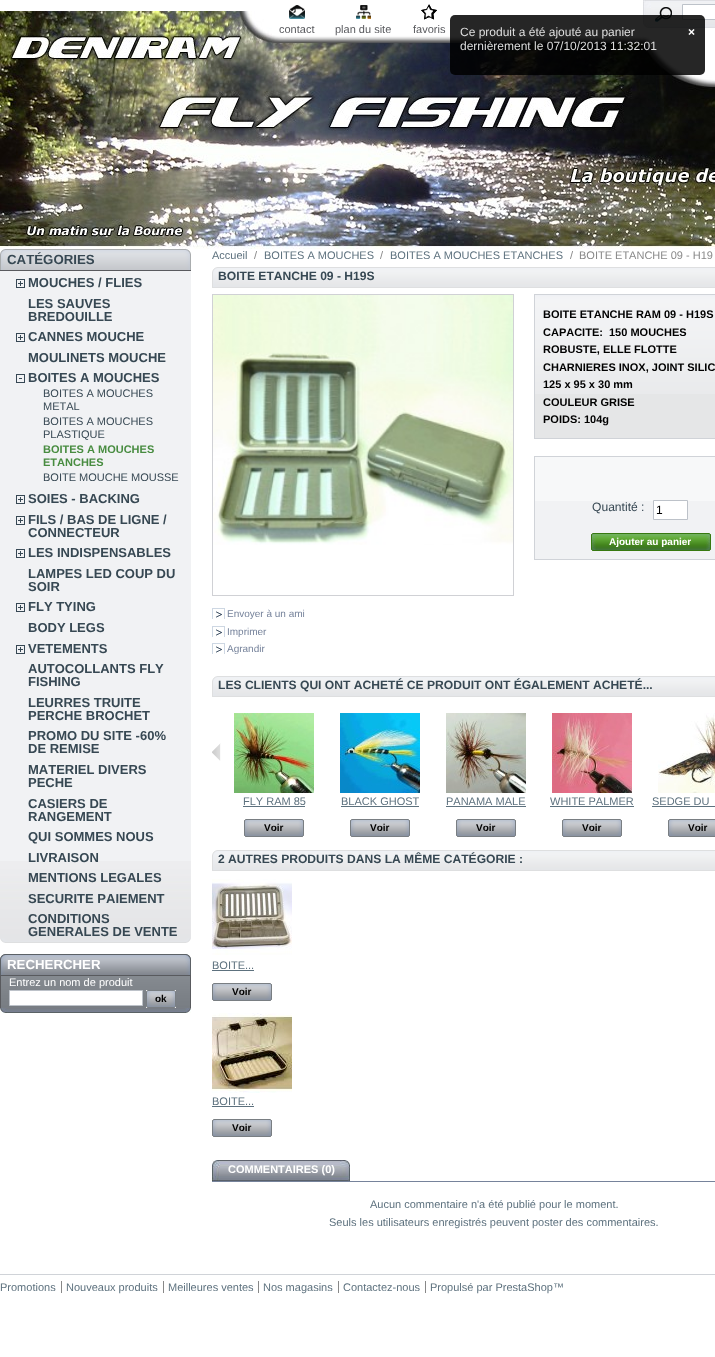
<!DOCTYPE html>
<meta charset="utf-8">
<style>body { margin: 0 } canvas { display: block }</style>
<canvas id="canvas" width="715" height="1357"></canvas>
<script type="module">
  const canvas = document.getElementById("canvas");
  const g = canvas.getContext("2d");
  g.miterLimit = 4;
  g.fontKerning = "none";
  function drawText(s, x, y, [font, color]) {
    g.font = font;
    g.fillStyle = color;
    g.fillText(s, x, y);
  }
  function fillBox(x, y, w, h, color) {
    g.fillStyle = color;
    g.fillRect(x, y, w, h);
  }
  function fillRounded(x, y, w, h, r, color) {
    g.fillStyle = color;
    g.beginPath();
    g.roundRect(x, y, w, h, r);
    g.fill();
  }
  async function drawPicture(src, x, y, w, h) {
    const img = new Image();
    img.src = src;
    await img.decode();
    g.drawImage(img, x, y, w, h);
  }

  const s1 = ["11px Liberation Sans", "#595A5E"];
  const s2 = ["bold 13.25px Liberation Sans", "#374853"];
  const s3 = ["bold 13px Liberation Sans", "#374853"];
  const s4 = ["11px Liberation Sans", "#374853"];
  const s5 = ["bold 11px Liberation Sans", "#488C40"];
  const s6 = ["bold 13.25px Liberation Sans", "#FFFFFF"];
  const s7 = ["11px Liberation Sans", "#FFFFFF"];
  const s8 = ["bold 10px Liberation Sans", "#000000"];
  const s9 = ["11px Liberation Sans", "#5D717E"];
  const s10 = ["11px Liberation Sans", "#888888"];
  const s11 = ["bold 12.1px Liberation Sans", "#374853"];
  const s12 = ["bold 11px Liberation Sans", "#000000"];
  const s13 = ["12.1px Liberation Sans", "#374853"];
  const s14 = ["12px Liberation Sans", "#000000"];
  const s15 = ["bold 10px Liberation Sans", "#FFFFFF"];
  const s16 = ["10px Liberation Sans", "#76839B"];
  const s17 = ["bold 11px Liberation Sans", "#FFFFFF"];
  const s18 = ["12px Liberation Sans", "#DEDEDE"];
  const s19 = ["bold 12px Liberation Sans", "#FFFFFF"];

  fillBox(0, 0, 715, 1357, "#FFFFFF");
  await drawPicture("pic1.png", 0, 11, 715, 238);
  await drawPicture("pic2.png", 643, 0, 72, 28);
  await drawPicture("pic3.png", 655, 7, 17, 15);
  g.beginPath();
  g.rect(682.5, 4.5, 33, 15);
  g.fill();
  g.strokeStyle = "#BDC2C9";
  g.stroke();
  await drawPicture("pic4.png", 289, 5, 16, 14);
  drawText("contact", 279, 33, s1);
  await drawPicture("pic5.png", 356, 5, 15, 14);
  drawText("plan du site", 335, 33, s1);
  await drawPicture("pic6.png", 421, 4, 16, 16);
  drawText("favoris", 413, 33, s1);
  await drawPicture("pic7.png", 0, 938, 191, 5);
  await drawPicture("pic8.png", 0, 249, 191, 21);
  fillBox(0, 270, 191, 1, "#595A5E");
  drawText("CATÉGORIES", 7, 264, s2);
  fillBox(0, 271, 191, 590, "#F1F2F4");
  await drawPicture("pic9.png", 0, 861, 191, 77);
  await drawPicture("pic10.png", 16, 279, 9, 9);
  drawText("MOUCHES / FLIES", 28, 287, s3);
  drawText("LES SAUVES", 28, 308, s3);
  drawText("BREDOUILLE", 28, 321, s3);
  await drawPicture("pic10.png", 16, 333, 9, 9);
  drawText("CANNES MOUCHE", 28, 341, s3);
  drawText("MOULINETS MOUCHE", 28, 362, s3);
  await drawPicture("pic11.png", 16, 374, 9, 9);
  drawText("BOITES A MOUCHES", 28, 382, s3);
  drawText("BOITES A MOUCHES", 43, 397, s4);
  drawText("METAL", 43, 410, s4);
  drawText("BOITES A MOUCHES", 43, 425, s4);
  drawText("PLASTIQUE", 43, 438, s4);
  drawText("BOITES A MOUCHES", 43, 453, s5);
  drawText("ETANCHES", 43, 466, s5);
  drawText("BOITE MOUCHE MOUSSE", 43, 481, s4);
  await drawPicture("pic10.png", 16, 495, 9, 9);
  drawText("SOIES - BACKING", 28, 503, s3);
  await drawPicture("pic10.png", 16, 516, 9, 9);
  drawText("FILS / BAS DE LIGNE /", 28, 524, s3);
  drawText("CONNECTEUR", 28, 537, s3);
  await drawPicture("pic10.png", 16, 549, 9, 9);
  drawText("LES INDISPENSABLES", 28, 557, s3);
  drawText("LAMPES LED COUP DU", 28, 578, s3);
  drawText("SOIR", 28, 591, s3);
  await drawPicture("pic10.png", 16, 603, 9, 9);
  drawText("FLY TYING", 28, 611, s3);
  drawText("BODY LEGS", 28, 632, s3);
  await drawPicture("pic10.png", 16, 645, 9, 9);
  drawText("VETEMENTS", 28, 653, s3);
  drawText("AUTOCOLLANTS FLY", 28, 673, s3);
  drawText("FISHING", 28, 686, s3);
  drawText("LEURRES TRUITE", 28, 707, s3);
  drawText("PERCHE BROCHET", 28, 720, s3);
  drawText("PROMO DU SITE -60%", 28, 740, s3);
  drawText("DE REMISE", 28, 753, s3);
  drawText("MATERIEL DIVERS", 28, 774, s3);
  drawText("PECHE", 28, 787, s3);
  drawText("CASIERS DE", 28, 808, s3);
  drawText("RANGEMENT", 28, 821, s3);
  drawText("QUI SOMMES NOUS", 28, 841, s3);
  drawText("LIVRAISON", 28, 862, s3);
  drawText("MENTIONS LEGALES", 28, 882, s3);
  drawText("SECURITE PAIEMENT", 28, 903, s3);
  drawText("CONDITIONS", 28, 923, s3);
  drawText("GENERALES DE VENTE", 28, 936, s3);
  await drawPicture("pic12.png", 0, 1008, 191, 5);
  await drawPicture("pic13.png", 0, 954, 191, 21);
  fillBox(0, 975, 191, 1, "#595A5E");
  drawText("RECHERCHER", 7, 969, s6);
  await drawPicture("pic14.png", 1, 976, 189, 32);
  fillBox(190, 976, 1, 32, "#595A5E");
  fillBox(0, 976, 1, 32, "#595A5E");
  drawText("Entrez un nom de produit", 9, 986, s7);
  g.beginPath();
  g.rect(9.5, 990.5, 133, 15);
  g.fill();
  g.stroke();
  fillBox(146, 990, 30, 18, "#EFEFEF");
  await drawPicture("pic15.png", 146, 990, 30, 18);
  drawText("ok", 155, 1002, s8);
  drawText("Accueil", 212, 259, s9);
  drawText("/", 254, 259, s10);
  drawText("BOITES A MOUCHES", 264, 259, s9);
  drawText("/", 380, 259, s10);
  drawText("BOITES A MOUCHES ETANCHES", 390, 259, s9);
  drawText("/", 570, 259, s10);
  drawText("BOITE ETANCHE 09 - H19", 579, 259, s10);
  await drawPicture("pic16.png", 212, 267, 503, 21);
  drawText("BOITE ETANCHE 09 - H19S", 218, 280, s11);
  fillBox(535, 394, 180, 44, "#E5E6E7");
  await drawPicture("pic17.png", 535, 295, 180, 99);
  g.strokeStyle = "#D0D3D8";
  g.strokeRect(534.5, 294.5, 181, 144);
  drawText("BOITE ETANCHE RAM 09 - H19S", 543, 318, s12);
  drawText("CAPACITE:  150 MOUCHES", 543, 336, s12);
  drawText("ROBUSTE, ELLE FLOTTE", 543, 353, s12);
  drawText("CHARNIERES INOX, JOINT SILIC", 543, 371, s12);
  drawText("125 x 95 x 30 mm", 543, 388, s12);
  drawText("COULEUR GRISE", 543, 406, s12);
  drawText("POIDS: 104g", 543, 423, s12);
  fillBox(535, 501, 180, 58, "#F1F2F4");
  fillBox(535, 457, 180, 44, "#F7F8F9");
  g.strokeRect(534.5, 456.5, 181, 103);
  drawText("Quantité :", 592, 511, s13);
  g.fillStyle = "#FFFFFF";
  g.beginPath();
  g.rect(653.5, 500.5, 34, 19);
  g.fill();
  g.strokeStyle = "#BDC2C9";
  g.stroke();
  drawText("1", 656, 514, s14);
  fillBox(591, 533, 120, 18, "#EFEFEF");
  await drawPicture("pic18.png", 591, 533, 120, 18);
  drawText("Ajouter au panier", 609, 545, s15);
  g.strokeStyle = "#D0D1D5";
  g.strokeRect(212.5, 294.5, 301, 301);
  await drawPicture("pic19.png", 213, 295, 300, 250);
  await drawPicture("pic20.png", 212, 608, 13, 11);
  drawText("Envoyer à un ami", 227, 617, s16);
  await drawPicture("pic20.png", 212, 626, 13, 11);
  drawText("Imprimer", 227, 635, s16);
  await drawPicture("pic20.png", 212, 643, 13, 11);
  drawText("Agrandir", 227, 652, s16);
  await drawPicture("pic16.png", 212, 676, 503, 21);
  drawText("LES CLIENTS QUI ONT ACHETÉ CE PRODUIT ONT ÉGALEMENT ACHETÉ...", 218, 689, s11);
  await drawPicture("pic21.png", 212, 743, 9, 18);
  await drawPicture("pic22.png", 234, 713, 80, 80);
  drawText("FLY RAM 85", 243, 805, s9);
  fillBox(243, 806, 62, 1, "#5D717E");
  await drawPicture("pic23.png", 244, 819, 60, 18);
  drawText("Voir", 264, 831, s8);
  await drawPicture("pic24.png", 340, 713, 80, 80);
  drawText("BLACK GHOST", 341, 805, s9);
  fillBox(341, 806, 78, 1, "#5D717E");
  await drawPicture("pic23.png", 350, 819, 60, 18);
  drawText("Voir", 370, 831, s8);
  await drawPicture("pic25.png", 446, 713, 80, 80);
  drawText("PANAMA MALE", 446, 805, s9);
  fillBox(446, 806, 80, 1, "#5D717E");
  await drawPicture("pic23.png", 456, 819, 60, 18);
  drawText("Voir", 476, 831, s8);
  await drawPicture("pic26.png", 552, 713, 80, 80);
  drawText("WHITE PALMER", 550, 805, s9);
  fillBox(550, 806, 84, 1, "#5D717E");
  await drawPicture("pic23.png", 562, 819, 60, 18);
  drawText("Voir", 582, 831, s8);
  await drawPicture("pic27.png", 658, 713, 57, 80);
  drawText("SEDGE DU", 652, 805, s9);
  fillBox(652, 806, 63, 1, "#5D717E");
  await drawPicture("pic28.png", 668, 819, 47, 18);
  drawText("Voir", 688, 831, s8);
  await drawPicture("pic16.png", 212, 850, 503, 21);
  drawText("2 AUTRES PRODUITS DANS LA MÊME CATÉGORIE :", 218, 863, s11);
  await drawPicture("pic29.png", 212, 879, 80, 76);
  drawText("BOITE...", 212, 969, s9);
  fillBox(212, 970, 42, 1, "#5D717E");
  await drawPicture("pic23.png", 212, 983, 60, 18);
  drawText("Voir", 232, 995, s8);
  await drawPicture("pic30.png", 212, 1013, 80, 80);
  drawText("BOITE...", 212, 1105, s9);
  fillBox(212, 1106, 42, 1, "#5D717E");
  await drawPicture("pic23.png", 212, 1119, 60, 18);
  drawText("Voir", 232, 1131, s8);
  fillBox(212, 1181, 503, 1, "#76839B");
  await drawPicture("pic31.png", 212, 1160, 138, 21);
  drawText("COMMENTAIRES (0)", 228, 1173, s17);
  drawText("Aucun commentaire n'a été publié pour le moment.", 370, 1208, s9);
  drawText("Seuls les utilisateurs enregistrés peuvent poster des commentaires.", 329, 1226, s9);
  fillBox(0, 1274, 715, 1, "#D0D3D8");
  drawText("Promotions", 0, 1291, s9);
  drawText("Nouveaux produits", 66, 1291, s9);
  fillBox(61, 1281, 1, 12, "#888888");
  drawText("Meilleures ventes", 168, 1291, s9);
  fillBox(163, 1281, 1, 12, "#888888");
  drawText("Nos magasins", 263, 1291, s9);
  fillBox(258, 1281, 1, 12, "#888888");
  drawText("Contactez-nous", 343, 1291, s9);
  fillBox(338, 1281, 1, 12, "#888888");
  drawText("Propulsé par PrestaShop™", 430, 1291, s9);
  fillBox(425, 1281, 1, 12, "#888888");
  fillRounded(450, 15, 255, 60, 5, "rgba(0, 0, 0, 0.85)");
  drawText("Ce produit a été ajouté au panier", 460, 36, s18);
  drawText("dernièrement le 07/10/2013 11:32:01", 460, 50, s18);
  drawText("×", 688, 36, s19);
</script>
